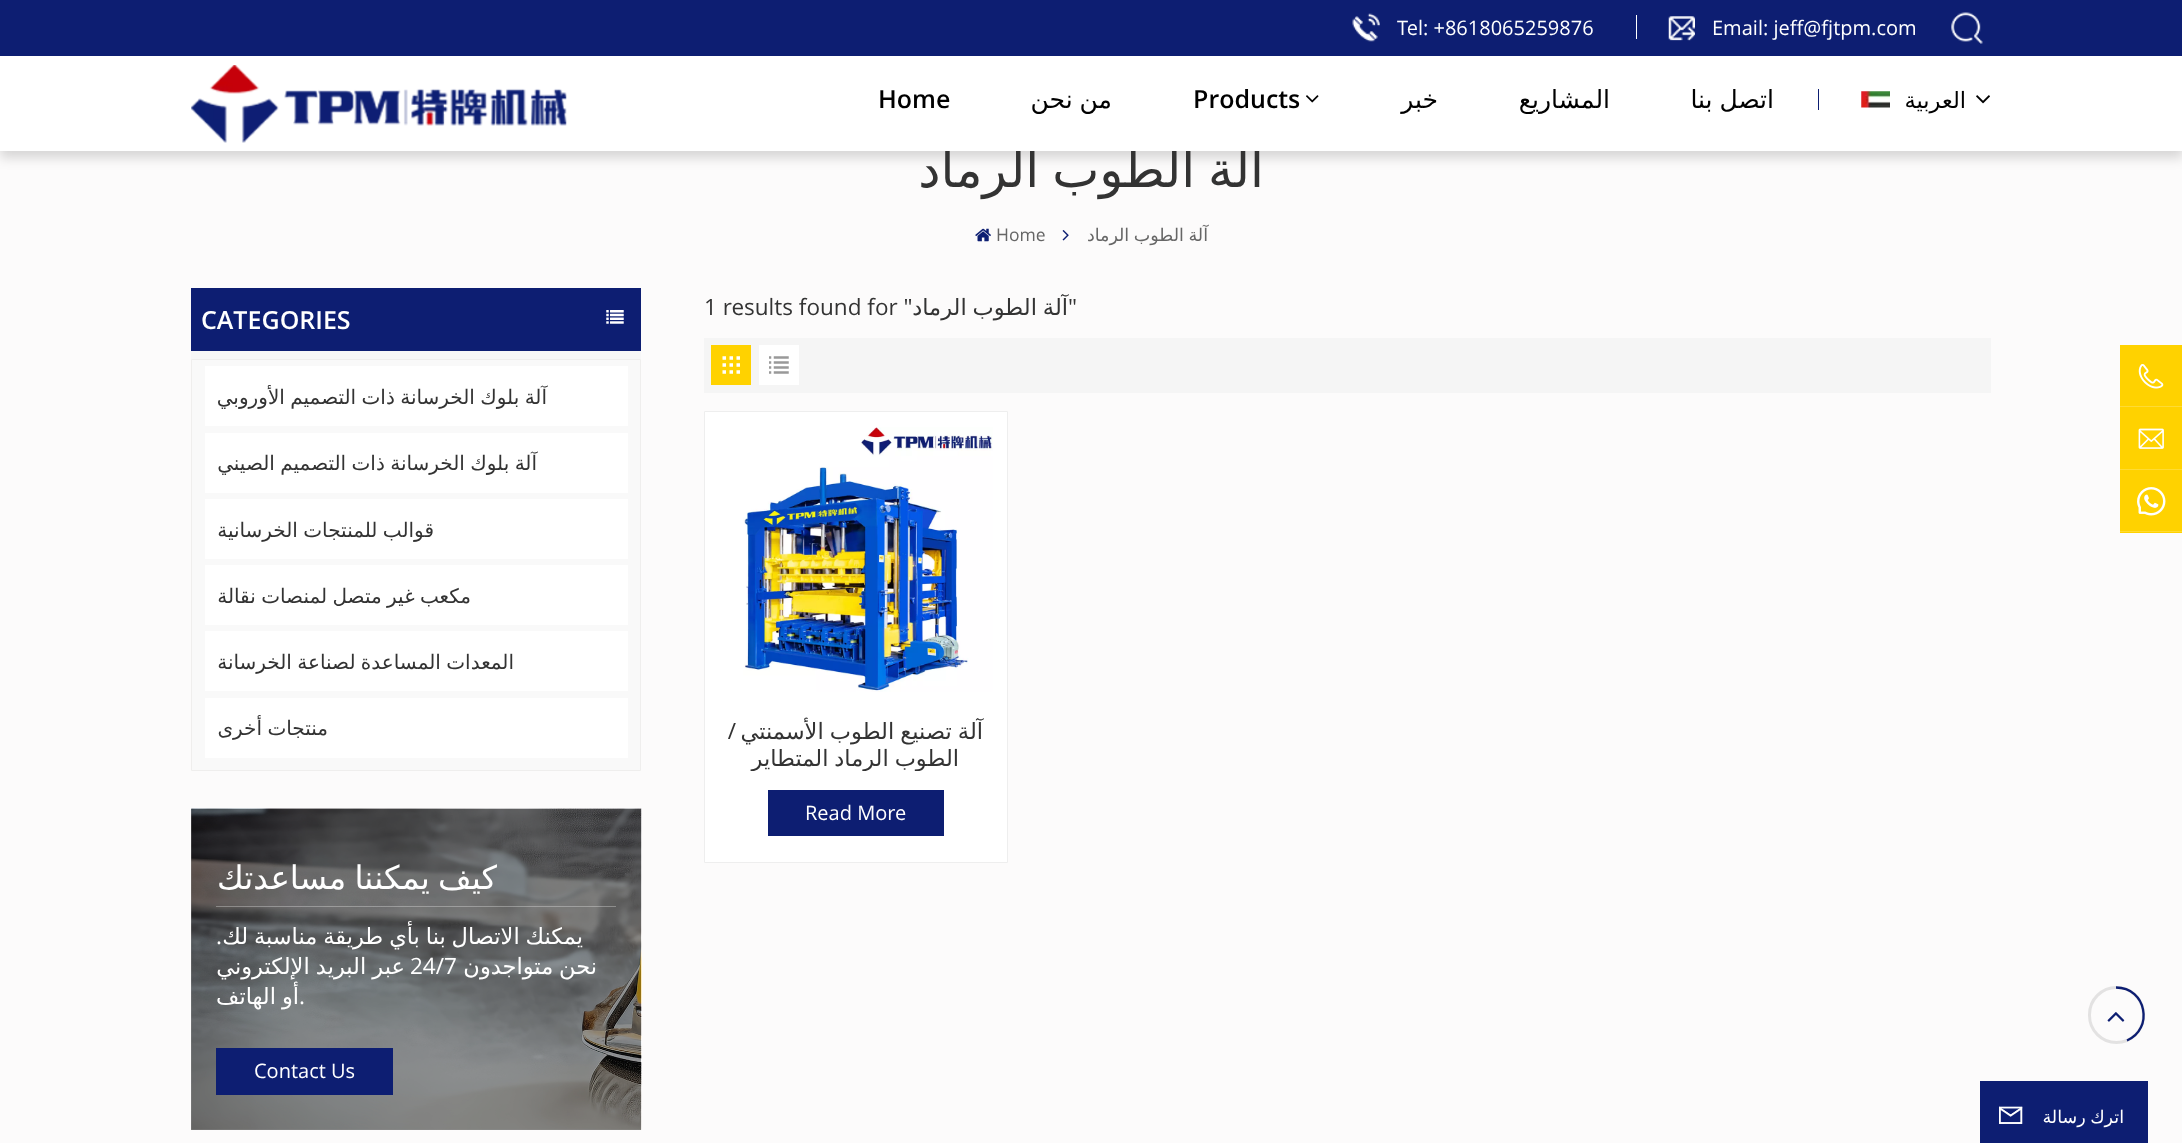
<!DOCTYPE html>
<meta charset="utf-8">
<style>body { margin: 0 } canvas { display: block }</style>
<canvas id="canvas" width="2182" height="1143"></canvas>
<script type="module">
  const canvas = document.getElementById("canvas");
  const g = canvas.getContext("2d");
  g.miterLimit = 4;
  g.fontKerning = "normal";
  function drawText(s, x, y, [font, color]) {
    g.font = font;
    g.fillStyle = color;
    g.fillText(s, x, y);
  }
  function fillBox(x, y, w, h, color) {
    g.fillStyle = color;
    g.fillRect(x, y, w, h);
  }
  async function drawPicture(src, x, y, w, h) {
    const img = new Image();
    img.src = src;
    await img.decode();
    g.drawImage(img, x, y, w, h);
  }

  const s1 = ["50px DejaVu Sans", "#333333"];
  const s2 = ["20px Open Sans", "#FFFFFF"];
  const s3 = ["22.5px DejaVu Sans", "#000000"];
  const s4 = ["25px DejaVu Sans", "#000000"];
  const s5 = ["600 25px Open Sans", "#000000"];
  const s6 = ["17.5px DejaVu Sans", "#666666"];
  const s7 = ["17.5px Open Sans", "#666666"];
  const s8 = ["22.5px DejaVu Sans", "#333333"];
  const s9 = ["22.5px Open Sans", "#333333"];
  const s10 = ["600 25px Open Sans", "#FFFFFF"];
  const s11 = ["20px DejaVu Sans", "#333333"];
  const s12 = ["32.5px DejaVu Sans", "#FFFFFF"];
  const s13 = ["22.5px DejaVu Sans", "#FFFFFF"];
  const s14 = ["22.5px Open Sans", "#FFFFFF"];
  const s15 = ["17.5px DejaVu Sans", "#FFFFFF"];

  fillBox(0, 0, 2182, 1143, "#FCFBFB");
  fillBox(191, 809, 450, 321, "#979797");
  g.fillStyle = "rgba(0, 0, 0, 0.15)";
  g.filter = "blur(6px)";
  g.beginPath();
  g.rect(0, 6, 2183, 152);
  g.fill();
  g.filter = "none";
  g.wordSpacing = "-3px";
  g.direction = "rtl";
  drawText("آلة الطوب الرماد", 1264, 187, s1);
  fillBox(0, 56, 2182, 95, "#FFFFFF");
  fillBox(0, 0, 2182, 56, "#0D1E72");
  await drawPicture("pic1.png", 1951, 12, 32, 32);
  g.wordSpacing = "0px";
  g.direction = "ltr";
  drawText("Email: jeff@fjtpm.com", 1712, 35, s2);
  await drawPicture("pic2.png", 1668, 16, 27, 25);
  fillBox(1636, 15, 1, 24, "#FFFFFF");
  drawText("Tel: +8618065259876", 1397, 35, s2);
  await drawPicture("pic3.png", 1352, 13, 28, 29);
  await drawPicture("pic4.png", 1976, 95, 14, 9);
  g.direction = "rtl";
  drawText("العربية", 1966, 108, s3);
  await drawPicture("pic5.png", 1861, 91, 29, 17);
  fillBox(1818, 89, 1, 21, "#0D1E72");
  g.wordSpacing = "-1px";
  drawText("اتصل بنا", 1774, 108, s4);
  g.wordSpacing = "0px";
  drawText("المشاريع", 1610, 108, s4);
  drawText("خبر", 1438, 108, s4);
  await drawPicture("pic6.png", 1306, 95, 13, 8);
  g.direction = "ltr";
  drawText("Products", 1193, 108, s5);
  g.wordSpacing = "-1px";
  g.direction = "rtl";
  drawText("من نحن", 1112, 108, s4);
  g.wordSpacing = "0px";
  g.direction = "ltr";
  drawText("Home", 878, 108, s5);
  await drawPicture("pic7.png", 191, 65, 376, 78);
  g.wordSpacing = "-1px";
  g.direction = "rtl";
  drawText("آلة الطوب الرماد", 1208, 241, s6);
  await drawPicture("pic8.png", 1062, 230, 7, 11);
  g.wordSpacing = "0px";
  g.direction = "ltr";
  drawText("Home", 996, 241, s7);
  await drawPicture("pic9.png", 975, 228, 16, 14);
  fillBox(2120, 345, 62, 124, "#FFD200");
  fillBox(2120, 406, 62, 1, "#FFDB33");
  await drawPicture("pic10.png", 2138, 364, 26, 25);
  fillBox(2120, 469, 62, 1, "#FFDB33");
  await drawPicture("pic11.png", 2138, 428, 26, 21);
  fillBox(2120, 470, 62, 63, "#FFD200");
  fillBox(2120, 531, 62, 1, "#FFDB33");
  await drawPicture("pic12.png", 2137, 487, 29, 29);
  g.wordSpacing = "-1.25px";
  g.direction = "rtl";
  drawText("آلة الطوب الرماد", 1068, 315, s8);
  g.wordSpacing = "0px";
  g.direction = "ltr";
  drawText("\"", 1068, 315, s9);
  drawText("1 results found for \"", 704, 315, s9);
  fillBox(704, 338, 1287, 55, "#F5F5F5");
  fillBox(759, 345, 40, 40, "#FFFFFF");
  await drawPicture("pic13.png", 769, 356, 20, 18);
  fillBox(711, 345, 40, 40, "#FFD200");
  await drawPicture("pic14.png", 722, 356, 18, 18);
  g.fillStyle = "#FFFFFF";
  g.beginPath();
  g.rect(704.5, 411.5, 303, 451);
  g.fill();
  g.strokeStyle = "#EEEEEE";
  g.stroke();
  await drawPicture("pic15.png", 743, 427, 250, 265);
  g.wordSpacing = "-1px";
  g.direction = "rtl";
  drawText("آلة تصنيع الطوب الأسمنتي", 983, 739, s8);
  g.wordSpacing = "0px";
  drawText("/", 736, 739, s9);
  g.save();
  g.beginPath();
  g.rect(715, 716, 281, 55);
  g.clip();
  g.wordSpacing = "-1.25px";
  drawText("الطوب الرماد المتطاير", 959, 766, s8);
  g.restore();
  fillBox(768, 790, 176, 46, "#0D1E72");
  g.direction = "ltr";
  drawText("Read More", 805, 820, s2);
  fillBox(191, 351, 450, 8, "#F7F7F7");
  fillBox(191, 288, 450, 63, "#0D1E72");
  await drawPicture("pic16.png", 606, 310, 18, 14);
  drawText("CATEGORIES", 201, 329, s10);
  g.fillStyle = "#F9F9F9";
  g.beginPath();
  g.rect(191.5, 359.5, 449, 411);
  g.fill();
  g.strokeStyle = "#EFEEED";
  g.stroke();
  fillBox(205, 366, 423, 60, "#FFFFFF");
  g.wordSpacing = "-1px";
  g.direction = "rtl";
  drawText("آلة بلوك الخرسانة ذات التصميم الأوروبي", 547, 404, s11);
  fillBox(205, 433, 423, 60, "#FFFFFF");
  drawText("آلة بلوك الخرسانة ذات التصميم الصيني", 537, 470, s11);
  fillBox(205, 499, 423, 60, "#FFFFFF");
  drawText("قوالب للمنتجات الخرسانية", 434, 537, s11);
  fillBox(205, 565, 423, 60, "#FFFFFF");
  drawText("مكعب غير متصل لمنصات نقالة", 471, 603, s11);
  fillBox(205, 631, 423, 60, "#FFFFFF");
  drawText("المعدات المساعدة لصناعة الخرسانة", 514, 669, s11);
  fillBox(205, 698, 423, 60, "#FFFFFF");
  drawText("منتجات أخرى", 328, 735, s11);
  await drawPicture("pic17.png", 191, 808, 451, 322);
  fillBox(216, 906, 400, 1, "rgba(255, 255, 255, 0.3)");
  g.wordSpacing = "-2px";
  drawText("كيف يمكننا مساعدتك", 497, 889, s12);
  g.wordSpacing = "-1.25px";
  drawText("يمكنك الاتصال بنا بأي طريقة مناسبة لك", 583, 944, s13);
  g.wordSpacing = "0px";
  drawText(".", 222, 944, s14);
  g.wordSpacing = "-1.25px";
  drawText("نحن متواجدون", 597, 974, s13);
  g.wordSpacing = "0px";
  g.direction = "ltr";
  drawText("24/7", 410, 974, s14);
  g.wordSpacing = "-1px";
  g.direction = "rtl";
  drawText("عبر البريد الإلكتروني", 405, 974, s13);
  g.wordSpacing = "0px";
  g.direction = "ltr";
  drawText(".", 299, 1004, s14);
  g.wordSpacing = "-1.25px";
  g.direction = "rtl";
  drawText("أو الهاتف", 299, 1004, s13);
  fillBox(216, 1048, 177, 47, "#0D1E72");
  g.wordSpacing = "0px";
  g.direction = "ltr";
  drawText("Contact Us", 254, 1078, s2);
  g.beginPath();
  g.roundRect(2089.5, 987.5, 54, 55, 27);
  g.strokeStyle = "#E3E2E2";
  g.lineWidth = 3;
  g.stroke();
  g.beginPath();
  g.moveTo(2116, 987.5);
  g.bezierCurveTo(2146.5, 987.5, 2154, 1029, 2127, 1040.5);
  g.strokeStyle = "#0D1E72";
  g.lineWidth = 2.3;
  g.stroke();
  await drawPicture("pic18.png", 2107, 1012, 18, 10);
  fillBox(1980, 1081, 168, 62, "#0D1E72");
  g.wordSpacing = "-1px";
  g.direction = "rtl";
  drawText("اترك رسالة", 2124, 1123, s15);
  await drawPicture("pic19.png", 1999, 1106, 24, 18);
</script>
